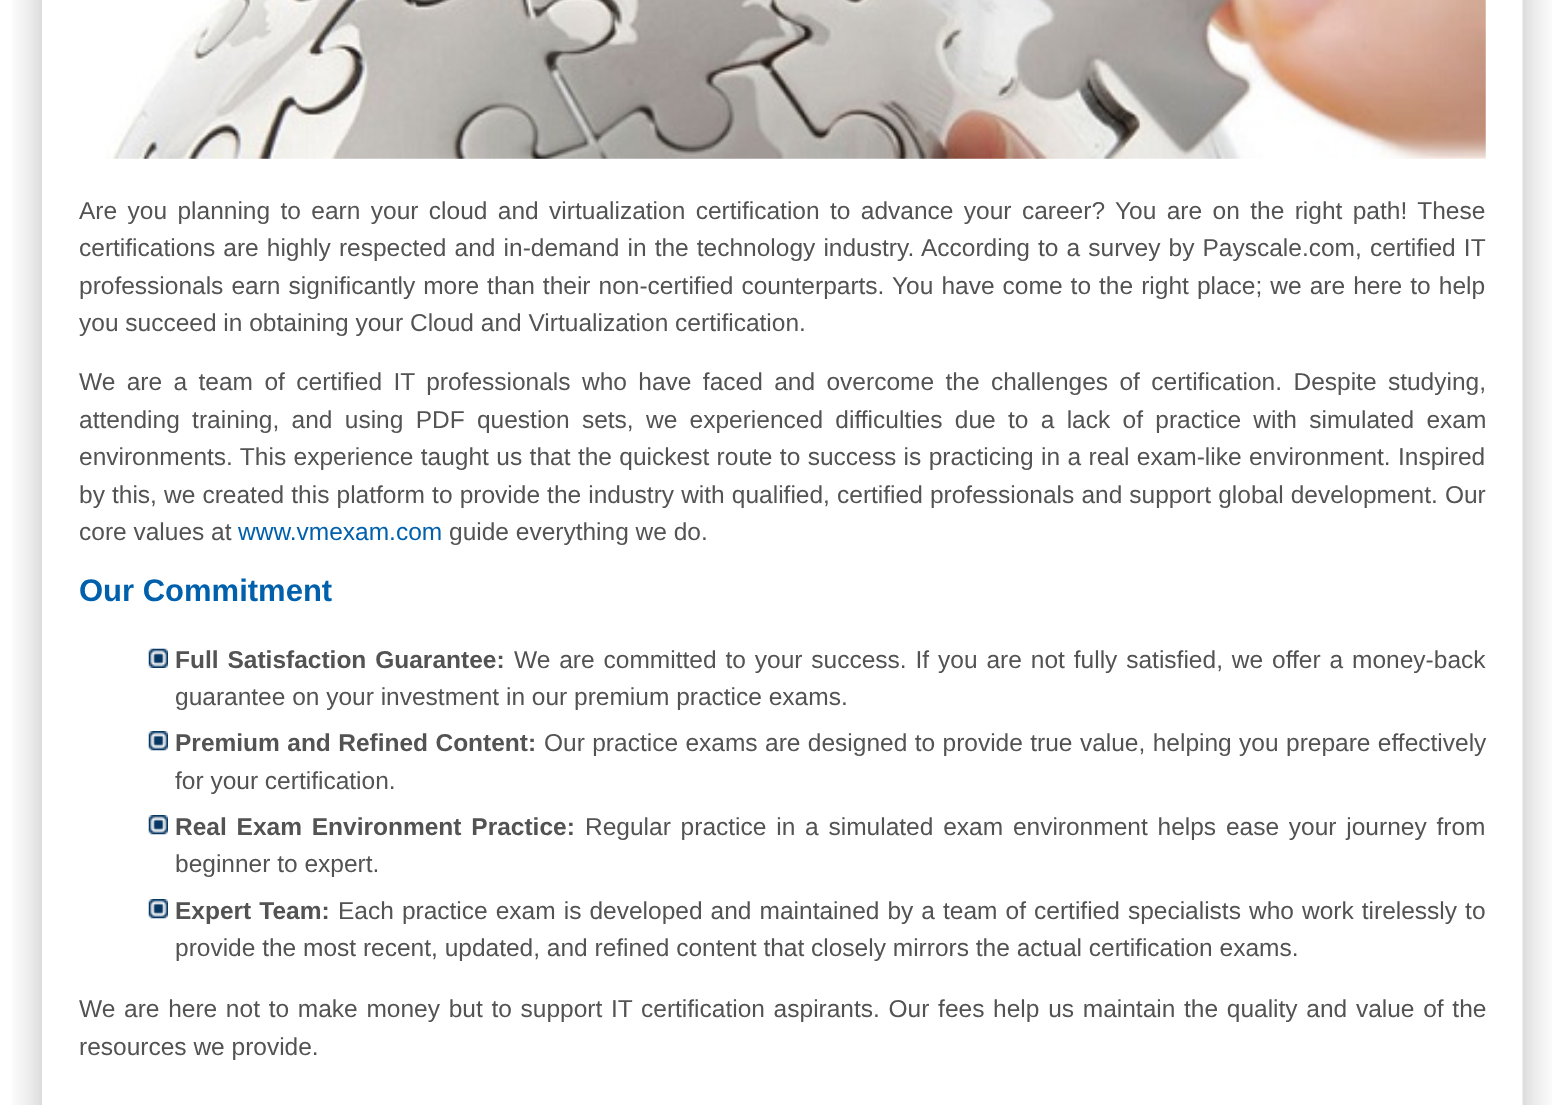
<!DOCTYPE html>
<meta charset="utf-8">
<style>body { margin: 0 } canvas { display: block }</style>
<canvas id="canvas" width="1564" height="1105"></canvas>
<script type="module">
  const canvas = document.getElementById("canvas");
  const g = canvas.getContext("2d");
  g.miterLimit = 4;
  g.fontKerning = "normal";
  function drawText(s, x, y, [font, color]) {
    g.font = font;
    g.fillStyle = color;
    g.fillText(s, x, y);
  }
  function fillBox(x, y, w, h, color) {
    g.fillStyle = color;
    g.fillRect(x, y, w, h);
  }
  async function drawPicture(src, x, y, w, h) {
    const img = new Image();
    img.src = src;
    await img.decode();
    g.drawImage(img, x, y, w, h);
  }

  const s1 = ["24.5px Liberation Sans", "#535353"];
  const s2 = ["24.5px Liberation Sans", "#0060AC"];
  const s3 = ["bold 31px Liberation Sans", "#0060AC"];
  const s4 = ["bold 24.5px Liberation Sans", "#535353"];

  fillBox(0, 0, 1564, 1105, "#FFFFFF");
  await drawPicture("pic1.png", 12, 0, 30, 1105);
  await drawPicture("pic2.png", 1522, 0, 30, 1105);
  await drawPicture("pic3.png", 106, 0, 1380, 159);
  g.wordSpacing = "3.6px";
  drawText("Are you planning to earn your cloud and virtualization certification to advance your career? You are on the right path! These", 79, 219, s1);
  g.wordSpacing = "1.3px";
  drawText("certifications are highly respected and in-demand in the technology industry. According to a survey by Payscale.com, certified IT", 79, 256, s1);
  g.wordSpacing = "1.25px";
  drawText("professionals earn significantly more than their non-certified counterparts. You have come to the right place; we are here to help", 79, 294, s1);
  g.wordSpacing = "0px";
  drawText("you succeed in obtaining your Cloud and Virtualization certification.", 79, 331, s1);
  g.wordSpacing = "4.6px";
  drawText("We are a team of certified IT professionals who have faced and overcome the challenges of certification. Despite studying,", 79, 390, s1);
  g.wordSpacing = "5.5px";
  drawText("attending training, and using PDF question sets, we experienced difficulties due to a lack of practice with simulated exam", 79, 428, s1);
  g.wordSpacing = "0.6px";
  drawText("environments. This experience taught us that the quickest route to success is practicing in a real exam-like environment. Inspired", 79, 465, s1);
  g.wordSpacing = "0.3px";
  drawText("by this, we created this platform to provide the industry with qualified, certified professionals and support global development. Our", 79, 503, s1);
  g.wordSpacing = "0px";
  drawText("core values at", 79, 540, s1);
  drawText("www.vmexam.com", 238, 540, s2);
  drawText("guide everything we do.", 449, 540, s1);
  drawText("Our Commitment", 79, 601, s3);
  await drawPicture("pic4.png", 148, 648, 20, 20);
  g.wordSpacing = "2.1px";
  drawText("Full Satisfaction Guarantee:", 175, 668, s4);
  drawText("We are committed to your success. If you are not fully satisfied, we offer a money-back", 514, 668, s1);
  g.wordSpacing = "0px";
  drawText("guarantee on your investment in our premium practice exams.", 175, 705, s1);
  await drawPicture("pic5.png", 148, 731, 20, 20);
  g.wordSpacing = "0.6px";
  drawText("Premium and Refined Content:", 175, 751, s4);
  drawText("Our practice exams are designed to provide true value, helping you prepare effectively", 544, 751, s1);
  g.wordSpacing = "0px";
  drawText("for your certification.", 175, 789, s1);
  await drawPicture("pic5.png", 148, 815, 20, 20);
  g.wordSpacing = "3px";
  drawText("Real Exam Environment Practice:", 175, 835, s4);
  drawText("Regular practice in a simulated exam environment helps ease your journey from", 585, 835, s1);
  g.wordSpacing = "0px";
  drawText("beginner to expert.", 175, 872, s1);
  await drawPicture("pic5.png", 148, 899, 20, 20);
  g.wordSpacing = "1.25px";
  drawText("Expert Team:", 175, 919, s4);
  drawText("Each practice exam is developed and maintained by a team of certified specialists who work tirelessly to", 338, 919, s1);
  g.wordSpacing = "0px";
  drawText("provide the most recent, updated, and refined content that closely mirrors the actual certification exams.", 175, 956, s1);
  g.wordSpacing = "1.9px";
  drawText("We are here not to make money but to support IT certification aspirants. Our fees help us maintain the quality and value of the", 79, 1017, s1);
  g.wordSpacing = "0px";
  drawText("resources we provide.", 79, 1055, s1);
</script>
